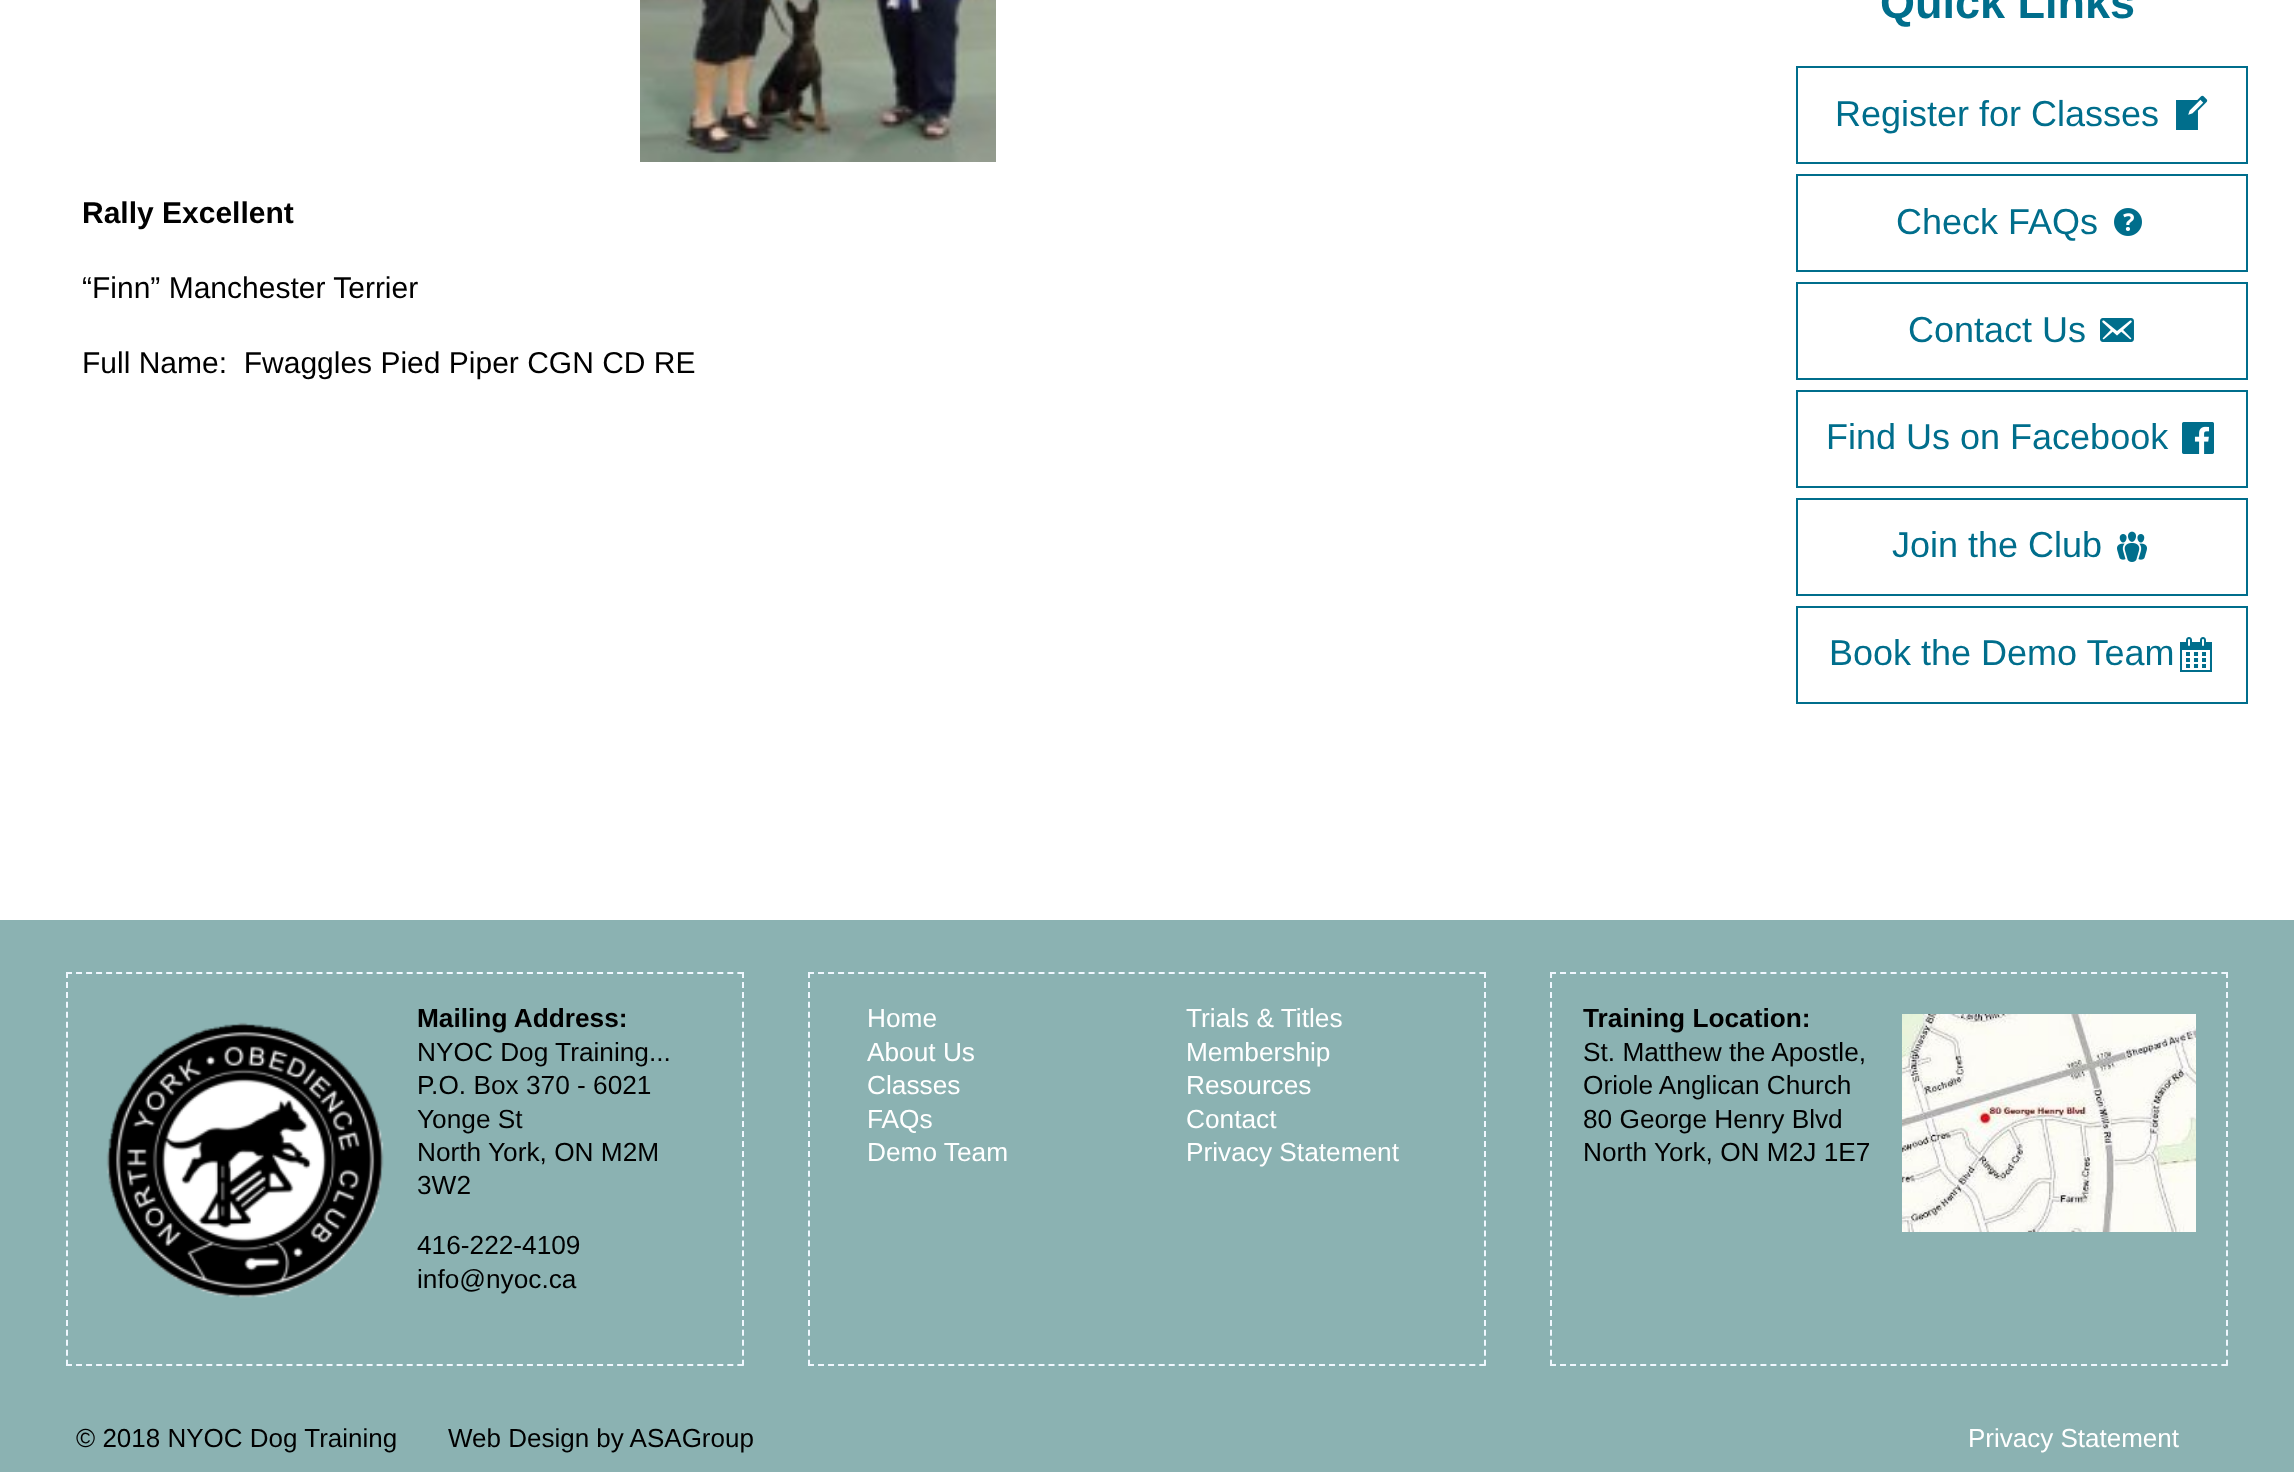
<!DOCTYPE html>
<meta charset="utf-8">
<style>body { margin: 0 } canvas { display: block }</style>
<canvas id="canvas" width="2294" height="1472"></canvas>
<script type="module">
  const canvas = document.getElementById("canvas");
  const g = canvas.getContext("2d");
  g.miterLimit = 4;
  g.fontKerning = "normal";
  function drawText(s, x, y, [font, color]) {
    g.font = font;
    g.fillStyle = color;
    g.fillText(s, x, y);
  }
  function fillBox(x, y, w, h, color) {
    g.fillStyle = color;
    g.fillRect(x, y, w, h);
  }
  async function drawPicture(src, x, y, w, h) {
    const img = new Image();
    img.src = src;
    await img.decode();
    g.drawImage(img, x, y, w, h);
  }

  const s1 = ["bold 30px Liberation Sans", "#000000"];
  const s2 = ["30px Liberation Sans", "#000000"];
  const s3 = ["bold 45px Liberation Sans", "#006E8C"];
  const s4 = ["36px Liberation Sans", "#006E8C"];
  const s5 = ["bold 26.25px Liberation Sans", "#000000"];
  const s6 = ["26.25px Liberation Sans", "#000000"];
  const s7 = ["26.25px Liberation Sans", "#FFFFFF"];
  const s8 = ["26px Liberation Sans", "#000000"];
  const s9 = ["26px Liberation Sans", "#FFFFFF"];

  fillBox(0, 0, 2294, 1472, "#FFFFFF");
  await drawPicture("pic1.png", 640, 0, 356, 162);
  drawText("Rally Excellent", 82, 223, s1);
  drawText("“Finn” Manchester Terrier", 82, 298, s2);
  drawText("Full Name:  Fwaggles Pied Piper CGN CD RE", 82, 373, s2);
  drawText("Quick Links", 1880, 18, s3);
  g.strokeStyle = "#006E8C";
  g.lineWidth = 2;
  g.strokeRect(1797, 67, 450, 96);
  drawText("Register for Classes", 1835, 126, s4);
  await drawPicture("pic2.png", 2176, 95, 32, 35);
  g.strokeRect(1797, 175, 450, 96);
  drawText("Check FAQs", 1896, 234, s4);
  await drawPicture("pic3.png", 2114, 208, 28, 28);
  g.strokeRect(1797, 283, 450, 96);
  drawText("Contact Us", 1908, 342, s4);
  await drawPicture("pic4.png", 2100, 318, 34, 24);
  g.strokeRect(1797, 391, 450, 96);
  drawText("Find Us on Facebook", 1826, 449, s4);
  await drawPicture("pic5.png", 2182, 422, 32, 32);
  g.strokeRect(1797, 499, 450, 96);
  drawText("Join the Club", 1892, 557, s4);
  await drawPicture("pic6.png", 2117, 531, 30, 31);
  g.strokeRect(1797, 607, 450, 96);
  drawText("Book the Demo Team", 1829, 665, s4);
  await drawPicture("pic7.png", 2180, 637, 32, 35);
  fillBox(0, 920, 2294, 552, "#8BB2B2");
  g.beginPath();
  g.moveTo(66, 973);
  g.lineTo(744, 973);
  g.strokeStyle = "#F0F8FF";
  g.setLineDash([6, 4.02]);
  g.stroke();
  g.beginPath();
  g.moveTo(743, 972);
  g.lineTo(743, 1366);
  g.setLineDash([6, 3.94]);
  g.stroke();
  g.beginPath();
  g.moveTo(66, 1365);
  g.lineTo(744, 1365);
  g.setLineDash([6, 4.02]);
  g.stroke();
  g.beginPath();
  g.moveTo(67, 972);
  g.lineTo(67, 1366);
  g.setLineDash([6, 3.94]);
  g.stroke();
  await drawPicture("pic8.png", 106, 1022, 278, 277);
  drawText("Mailing Address:", 417, 1027, s5);
  drawText("NYOC Dog Training...", 417, 1061, s6);
  drawText("P.O. Box 370 - 6021", 417, 1094, s6);
  drawText("Yonge St", 417, 1128, s6);
  drawText("North York, ON M2M", 417, 1161, s6);
  drawText("3W2", 417, 1194, s6);
  drawText("416-222-4109", 417, 1254, s6);
  drawText("info@nyoc.ca", 417, 1288, s6);
  g.beginPath();
  g.moveTo(808, 973);
  g.lineTo(1486, 973);
  g.setLineDash([6, 4.02]);
  g.stroke();
  g.beginPath();
  g.moveTo(1485, 972);
  g.lineTo(1485, 1366);
  g.setLineDash([6, 3.94]);
  g.stroke();
  g.beginPath();
  g.moveTo(808, 1365);
  g.lineTo(1486, 1365);
  g.setLineDash([6, 4.02]);
  g.stroke();
  g.beginPath();
  g.moveTo(809, 972);
  g.lineTo(809, 1366);
  g.setLineDash([6, 3.94]);
  g.stroke();
  drawText("Home", 867, 1027, s7);
  drawText("Trials & Titles", 1186, 1027, s7);
  drawText("About Us", 867, 1061, s7);
  drawText("Membership", 1186, 1061, s7);
  drawText("Classes", 867, 1094, s7);
  drawText("Resources", 1186, 1094, s7);
  drawText("FAQs", 867, 1128, s7);
  drawText("Contact", 1186, 1128, s7);
  drawText("Demo Team", 867, 1161, s7);
  drawText("Privacy Statement", 1186, 1161, s7);
  g.beginPath();
  g.moveTo(1550, 973);
  g.lineTo(2228, 973);
  g.setLineDash([6, 4.02]);
  g.stroke();
  g.beginPath();
  g.moveTo(2227, 972);
  g.lineTo(2227, 1366);
  g.setLineDash([6, 3.94]);
  g.stroke();
  g.beginPath();
  g.moveTo(1550, 1365);
  g.lineTo(2228, 1365);
  g.setLineDash([6, 4.02]);
  g.stroke();
  g.beginPath();
  g.moveTo(1551, 972);
  g.lineTo(1551, 1366);
  g.setLineDash([6, 3.94]);
  g.stroke();
  drawText("Training Location:", 1583, 1027, s5);
  drawText("St. Matthew the Apostle,", 1583, 1061, s6);
  drawText("Oriole Anglican Church", 1583, 1094, s6);
  drawText("80 George Henry Blvd", 1583, 1128, s6);
  drawText("North York, ON M2J 1E7", 1583, 1161, s6);
  await drawPicture("pic9.png", 1902, 1014, 294, 218);
  drawText("© 2018 NYOC Dog Training", 76, 1447, s8);
  drawText("Web Design by ASAGroup", 448, 1447, s8);
  drawText("Privacy Statement", 1968, 1447, s9);
</script>
